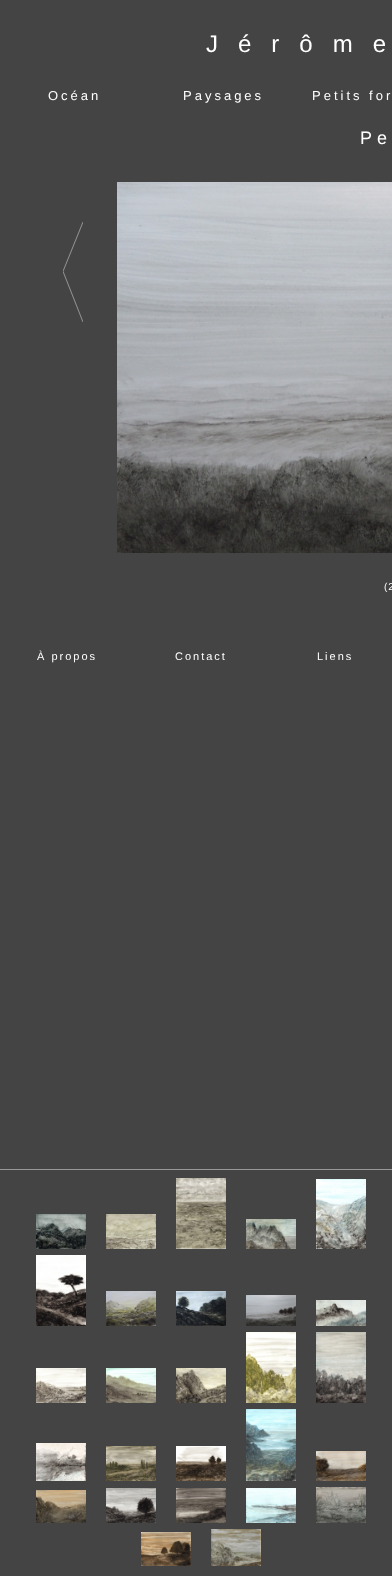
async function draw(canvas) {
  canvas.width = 392
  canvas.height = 1576
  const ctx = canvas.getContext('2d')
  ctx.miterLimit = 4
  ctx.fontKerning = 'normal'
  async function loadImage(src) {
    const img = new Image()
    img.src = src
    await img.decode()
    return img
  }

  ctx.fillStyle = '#444'
  ctx.fillRect(0, 0, 392, 1576)
  ctx.letterSpacing = '20px'
  ctx.font = '24px Liberation Sans'
  ctx.fillStyle = '#fff'
  ctx.fillText('Jérôme', 206, 52)
  ctx.letterSpacing = '3px'
  ctx.font = '13px Liberation Sans'
  ctx.fillText('Océan', 48, 100)
  ctx.fillText('Paysages', 183, 100)
  ctx.fillText('Petits for', 312, 100)
  ctx.letterSpacing = '5px'
  ctx.font = '18px Liberation Sans'
  ctx.fillText('Pe', 360, 144)
  ctx.drawImage(await loadImage('image0.png'), 63, 222, 20, 100)
  ctx.drawImage(await loadImage('image1.png'), 117, 182, 275, 371)
  ctx.letterSpacing = '1px'
  ctx.font = '10px Liberation Sans'
  ctx.fillText('(2', 384, 590)
  ctx.letterSpacing = '2px'
  ctx.font = '11px Liberation Sans'
  ctx.fillText('À propos', 37, 660)
  ctx.fillText('Contact', 175, 660)
  ctx.fillText('Liens', 317, 660)
  ctx.fillStyle = '#999'
  ctx.fillRect(0, 1169, 392, 1)
  ctx.drawImage(await loadImage('image2.png'), 36, 1214, 50, 35)
  ctx.drawImage(await loadImage('image3.png'), 106, 1214, 50, 35)
  ctx.drawImage(await loadImage('image4.png'), 176, 1178, 50, 71)
  ctx.drawImage(await loadImage('image5.png'), 246, 1219, 50, 30)
  ctx.drawImage(await loadImage('image6.png'), 316, 1179, 50, 70)
  ctx.drawImage(await loadImage('image7.png'), 36, 1255, 50, 71)
  ctx.drawImage(await loadImage('image8.png'), 106, 1291, 50, 35)
  ctx.drawImage(await loadImage('image9.png'), 176, 1291, 50, 35)
  ctx.drawImage(await loadImage('image10.png'), 246, 1295, 50, 31)
  ctx.drawImage(await loadImage('image11.png'), 316, 1300, 50, 26)
  ctx.drawImage(await loadImage('image12.png'), 36, 1368, 50, 35)
  ctx.drawImage(await loadImage('image13.png'), 106, 1368, 50, 35)
  ctx.drawImage(await loadImage('image14.png'), 176, 1368, 50, 35)
  ctx.drawImage(await loadImage('image15.png'), 246, 1332, 50, 71)
  ctx.drawImage(await loadImage('image16.png'), 316, 1332, 50, 71)
  ctx.drawImage(await loadImage('image17.png'), 36, 1443, 50, 38)
  ctx.drawImage(await loadImage('image18.png'), 106, 1446, 50, 35)
  ctx.drawImage(await loadImage('image19.png'), 176, 1446, 50, 35)
  ctx.drawImage(await loadImage('image20.png'), 246, 1409, 50, 72)
  ctx.drawImage(await loadImage('image21.png'), 316, 1451, 50, 30)
  ctx.drawImage(await loadImage('image22.png'), 36, 1490, 50, 33)
  ctx.drawImage(await loadImage('image23.png'), 106, 1488, 50, 35)
  ctx.drawImage(await loadImage('image24.png'), 176, 1488, 50, 35)
  ctx.drawImage(await loadImage('image25.png'), 246, 1488, 50, 35)
  ctx.drawImage(await loadImage('image26.png'), 316, 1487, 50, 36)
  ctx.drawImage(await loadImage('image27.png'), 141, 1532, 50, 34)
  ctx.drawImage(await loadImage('image28.png'), 211, 1529, 50, 37)
}

draw(document.querySelector('canvas'))
